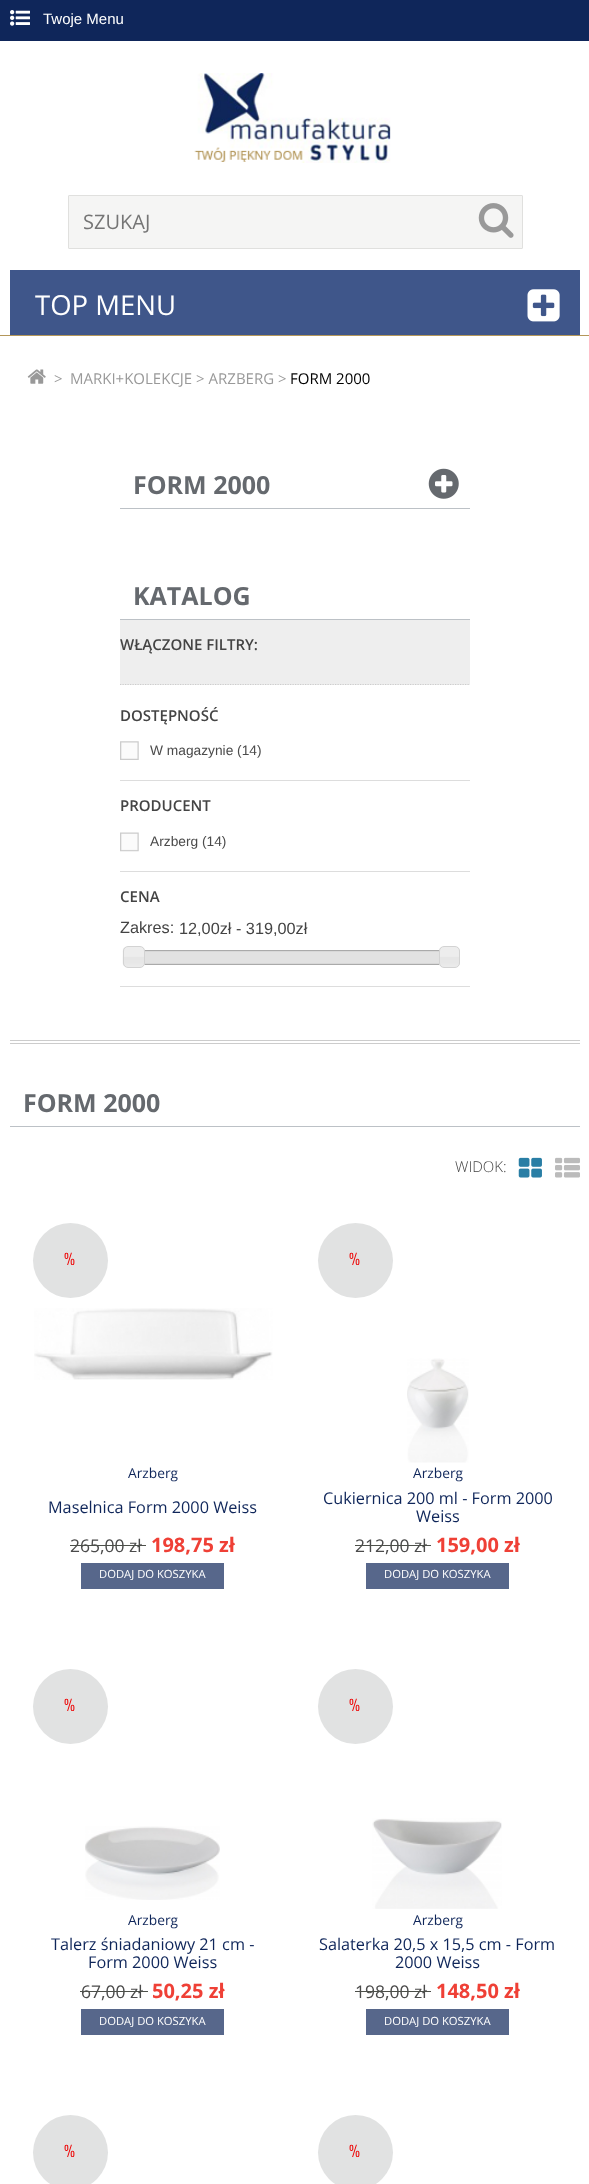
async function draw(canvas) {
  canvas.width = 589
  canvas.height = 2184
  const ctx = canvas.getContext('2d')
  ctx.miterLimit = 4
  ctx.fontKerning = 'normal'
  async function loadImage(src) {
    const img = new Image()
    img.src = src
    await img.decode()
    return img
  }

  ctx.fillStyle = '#fff'
  ctx.fillRect(0, 0, 589, 2184)
  ctx.fillStyle = '#0f265a'
  ctx.fillRect(0, 0, 589, 41)
  ctx.drawImage(await loadImage('image0.png'), 10, 10, 20, 16)
  ctx.font = '15px Liberation Sans'
  ctx.fillStyle = '#fff'
  ctx.fillText('Twoje Menu', 43, 24)
  ctx.fillStyle = '#b4975a'
  ctx.fillRect(0, 335, 589, 1)
  ctx.drawImage(await loadImage('image1.png'), 194, 73, 197, 90)
  ctx.fillStyle = '#f5f5f4'
  ctx.beginPath()
  ctx.roundRect(68.5, 195.5, 454, 53, 0.5)
  ctx.fill()
  ctx.strokeStyle = '#e0e0de'
  ctx.stroke()
  ctx.font = '20px Open Sans'
  ctx.fillStyle = '#757575'
  ctx.fillText('SZUKAJ', 83, 229)
  ctx.drawImage(await loadImage('image2.png'), 478, 203, 36, 35)
  ctx.fillStyle = '#3f568a'
  ctx.fillRect(10, 270, 570, 65)
  ctx.font = '27.5px Open Sans'
  ctx.fillStyle = '#fff'
  ctx.fillText('TOP MENU', 35, 315)
  ctx.drawImage(await loadImage('image3.png'), 527, 289, 33, 33)
  ctx.drawImage(await loadImage('image4.png'), 27, 369, 19, 15)
  ctx.font = '15px Open Sans'
  ctx.fillStyle = '#999'
  ctx.fillText('>', 54, 384)
  ctx.fillText('MARKI+KOLEKCJE > ARZBERG >', 70, 384)
  ctx.fillStyle = '#000'
  ctx.fillText('FORM 2000', 290, 384)
  ctx.fillStyle = '#ccc'
  ctx.fillRect(10, 1040, 570, 1)
  ctx.fillRect(10, 1043, 570, 1)
  ctx.fillStyle = '#bcc1c6'
  ctx.fillRect(120, 508, 350, 1)
  ctx.font = 'bold 25px Open Sans'
  ctx.fillStyle = '#65696e'
  ctx.fillText('FORM 2000', 133, 494)
  ctx.drawImage(await loadImage('image5.png'), 428, 468, 31, 31)
  ctx.fillStyle = '#bcc1c6'
  ctx.fillRect(120, 619, 350, 1)
  ctx.fillStyle = '#65696e'
  ctx.fillText('KATALOG', 133, 605)
  ctx.fillStyle = '#eee'
  ctx.fillRect(120, 620, 350, 65)
  ctx.beginPath()
  ctx.moveTo(120, 684.5)
  ctx.lineTo(470, 684.5)
  ctx.strokeStyle = '#ccc'
  ctx.lineWidth = 1.2
  ctx.setLineDash([1.25, 1.25])
  ctx.stroke()
  ctx.font = '600 15px Open Sans'
  ctx.fillStyle = '#444'
  ctx.fillText('WŁĄCZONE FILTRY:', 120, 650)
  ctx.fillStyle = '#ddd'
  ctx.fillRect(120, 780, 350, 1)
  ctx.fillStyle = '#444'
  ctx.fillText('DOSTĘPNOŚĆ', 120, 721)
  ctx.drawImage(await loadImage('image6.png'), 120, 741, 19, 19)
  ctx.font = '13.75px Liberation Sans'
  ctx.fillStyle = '#4b4b4b'
  ctx.fillText('W magazynie (14)', 150, 755)
  ctx.fillStyle = '#ddd'
  ctx.fillRect(120, 871, 350, 1)
  ctx.font = '600 15px Open Sans'
  ctx.fillStyle = '#444'
  ctx.fillText('PRODUCENT', 120, 811)
  ctx.drawImage(await loadImage('image7.png'), 120, 832, 19, 20)
  ctx.font = '13.75px Liberation Sans'
  ctx.fillStyle = '#4b4b4b'
  ctx.fillText('Arzberg (14)', 150, 846)
  ctx.fillStyle = '#ddd'
  ctx.fillRect(120, 986, 350, 1)
  ctx.font = '600 15px Open Sans'
  ctx.fillStyle = '#444'
  ctx.fillText('CENA', 120, 902)
  ctx.font = '16.25px Liberation Sans'
  ctx.fillText('Zakres:', 120, 933)
  ctx.fillText('12,00zł - 319,00zł', 179, 934)
  ctx.strokeStyle = '#aaa'
  ctx.lineWidth = 1
  ctx.setLineDash([])
  ctx.strokeRect(133.5, 950.5, 317, 14)
  ctx.fillStyle = '#ccc'
  ctx.fillRect(144, 951, 295, 13)
  ctx.drawImage(await loadImage('image9.png'), 144, 951, 295, 13)
  ctx.drawImage(await loadImage('image8.png'), 122, 947, 23, 20)
  ctx.beginPath()
  ctx.roundRect(123.5, 946.5, 21, 21, 4.5)
  ctx.strokeStyle = '#d3d3d3'
  ctx.stroke()
  ctx.drawImage(await loadImage('image10.png'), 439, 947, 21, 20)
  ctx.beginPath()
  ctx.roundRect(439.5, 946.5, 20, 21, 4.5)
  ctx.stroke()
  ctx.fillStyle = '#bcc1c6'
  ctx.fillRect(10, 1126, 570, 1)
  ctx.font = 'bold 25px Open Sans'
  ctx.fillStyle = '#65696e'
  ctx.fillText('FORM 2000', 23, 1112)
  ctx.font = '300 15px Open Sans'
  ctx.fillStyle = '#444'
  ctx.fillText('WIDOK:', 455, 1172)
  ctx.drawImage(await loadImage('image11.png'), 518, 1157, 24, 21)
  ctx.drawImage(await loadImage('image12.png'), 555, 1157, 25, 21)
  ctx.fillStyle = '#e1e2e2'
  ctx.beginPath()
  ctx.arc(70.5, 1260.5, 37.5, 0, 2 * Math.PI)
  ctx.fill()
  ctx.font = '300 15px Oswald'
  ctx.fillStyle = '#e00'
  ctx.fillText('%', 64, 1265)
  ctx.drawImage(await loadImage('image13.png'), 34, 1308, 239, 72)
  ctx.font = '13.75px Open Sans'
  ctx.fillStyle = '#0f265a'
  ctx.fillText('Arzberg', 128, 1478)
  ctx.font = '16.25px Open Sans'
  ctx.fillText('Maselnica Form 2000 Weiss', 48, 1513)
  ctx.font = '17.5px Open Sans'
  ctx.fillStyle = '#4b4b4b'
  ctx.fillText('265,00 zł', 70, 1552)
  ctx.fillStyle = '#4d504a'
  ctx.fillRect(70, 1545, 76, 1)
  ctx.font = 'bold 20px Open Sans'
  ctx.fillStyle = '#ef4036'
  ctx.fillText('198,75 zł', 151, 1552)
  ctx.fillStyle = '#57678b'
  ctx.fillRect(81, 1563, 143, 26)
  ctx.font = '11.25px Open Sans'
  ctx.fillStyle = '#fff'
  ctx.fillText('DODAJ DO KOSZYKA', 99, 1578)
  ctx.fillStyle = '#e1e2e2'
  ctx.beginPath()
  ctx.arc(355.5, 1260.5, 37.5, 0, 2 * Math.PI)
  ctx.fill()
  ctx.font = '300 15px Oswald'
  ctx.fillStyle = '#e00'
  ctx.fillText('%', 349, 1265)
  ctx.drawImage(await loadImage('image14.png'), 407, 1358, 62, 105)
  ctx.font = '13.75px Open Sans'
  ctx.fillStyle = '#0f265a'
  ctx.fillText('Arzberg', 413, 1478)
  ctx.font = '16.25px Open Sans'
  ctx.fillText('Cukiernica 200 ml - Form 2000', 323, 1504)
  ctx.fillText('Weiss', 416, 1522)
  ctx.font = '17.5px Open Sans'
  ctx.fillStyle = '#4b4b4b'
  ctx.fillText('212,00 zł', 355, 1552)
  ctx.fillStyle = '#4d504a'
  ctx.fillRect(355, 1545, 76, 1)
  ctx.font = 'bold 20px Open Sans'
  ctx.fillStyle = '#ef4036'
  ctx.fillText('159,00 zł', 436, 1552)
  ctx.fillStyle = '#57678b'
  ctx.fillRect(366, 1563, 143, 26)
  ctx.font = '11.25px Open Sans'
  ctx.fillStyle = '#fff'
  ctx.fillText('DODAJ DO KOSZYKA', 384, 1578)
  ctx.fillStyle = '#e1e2e2'
  ctx.beginPath()
  ctx.arc(70.5, 1706.5, 37.5, 0, 2 * Math.PI)
  ctx.fill()
  ctx.font = '300 15px Oswald'
  ctx.fillStyle = '#e00'
  ctx.fillText('%', 64, 1711)
  ctx.drawImage(await loadImage('image15.png'), 85, 1826, 135, 74)
  ctx.font = '13.75px Open Sans'
  ctx.fillStyle = '#0f265a'
  ctx.fillText('Arzberg', 128, 1925)
  ctx.font = '16.25px Open Sans'
  ctx.fillText('Talerz śniadaniowy 21 cm -', 51, 1950)
  ctx.fillText('Form 2000 Weiss', 88, 1968)
  ctx.font = '17.5px Open Sans'
  ctx.fillStyle = '#4b4b4b'
  ctx.fillText('67,00 zł', 81, 1998)
  ctx.fillStyle = '#4d504a'
  ctx.fillRect(80, 1991, 68, 1)
  ctx.font = 'bold 20px Open Sans'
  ctx.fillStyle = '#ef4036'
  ctx.fillText('50,25 zł', 152, 1998)
  ctx.fillStyle = '#57678b'
  ctx.fillRect(81, 2009, 143, 26)
  ctx.font = '11.25px Open Sans'
  ctx.fillStyle = '#fff'
  ctx.fillText('DODAJ DO KOSZYKA', 99, 2025)
  ctx.fillStyle = '#e1e2e2'
  ctx.beginPath()
  ctx.arc(355.5, 1706.5, 37.5, 0, 2 * Math.PI)
  ctx.fill()
  ctx.font = '300 15px Oswald'
  ctx.fillStyle = '#e00'
  ctx.fillText('%', 349, 1711)
  ctx.drawImage(await loadImage('image16.png'), 372, 1818, 130, 91)
  ctx.font = '13.75px Open Sans'
  ctx.fillStyle = '#0f265a'
  ctx.fillText('Arzberg', 413, 1925)
  ctx.font = '16.25px Open Sans'
  ctx.fillText('Salaterka 20,5 x 15,5 cm - Form', 319, 1950)
  ctx.fillText('2000 Weiss', 395, 1968)
  ctx.font = '17.5px Open Sans'
  ctx.fillStyle = '#4b4b4b'
  ctx.fillText('198,00 zł', 355, 1998)
  ctx.fillStyle = '#4d504a'
  ctx.fillRect(355, 1991, 76, 1)
  ctx.font = 'bold 20px Open Sans'
  ctx.fillStyle = '#ef4036'
  ctx.fillText('148,50 zł', 436, 1998)
  ctx.fillStyle = '#57678b'
  ctx.fillRect(366, 2009, 143, 26)
  ctx.font = '11.25px Open Sans'
  ctx.fillStyle = '#fff'
  ctx.fillText('DODAJ DO KOSZYKA', 384, 2025)
  ctx.fillStyle = '#e1e2e2'
  ctx.beginPath()
  ctx.arc(70.5, 2152.5, 37.5, 0, 2 * Math.PI)
  ctx.fill()
  ctx.font = '300 15px Oswald'
  ctx.fillStyle = '#e00'
  ctx.fillText('%', 64, 2157)
  ctx.fillStyle = '#e1e2e2'
  ctx.beginPath()
  ctx.arc(355.5, 2152.5, 37.5, 0, 2 * Math.PI)
  ctx.fill()
  ctx.fillStyle = '#e00'
  ctx.fillText('%', 349, 2157)
}

draw(document.querySelector('canvas'))
